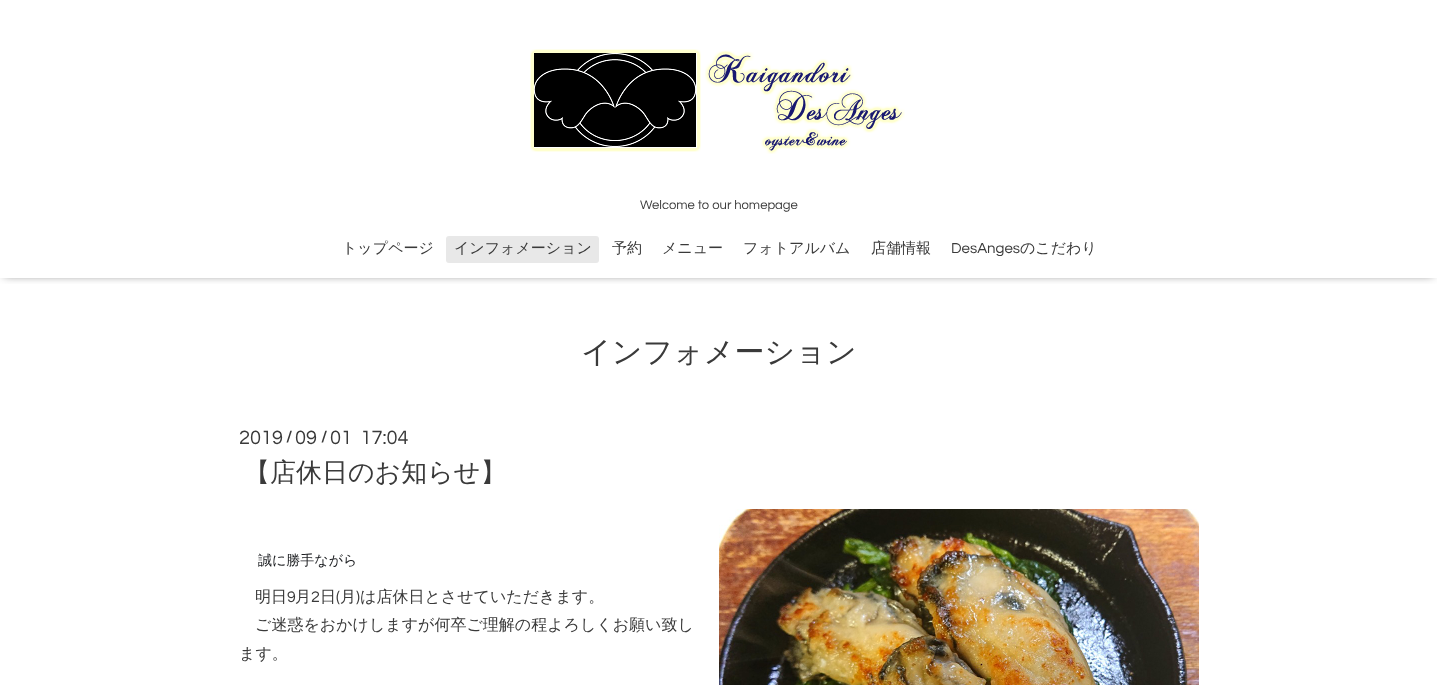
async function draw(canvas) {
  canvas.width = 1437
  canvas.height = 685
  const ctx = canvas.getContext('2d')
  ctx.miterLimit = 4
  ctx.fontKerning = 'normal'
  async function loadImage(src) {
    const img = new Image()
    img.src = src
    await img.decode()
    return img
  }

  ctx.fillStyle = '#fff'
  ctx.fillRect(0, 0, 1437, 685)
  ctx.save()
  ctx.beginPath()
  ctx.rect(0, 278, 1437, 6)
  ctx.clip()
  ctx.fillStyle = '#00000099'
  ctx.filter = 'blur(5px)'
  ctx.beginPath()
  ctx.rect(4, 5, 1429, 270)
  ctx.fill()
  ctx.filter = 'none'
  ctx.restore()
  ctx.drawImage(await loadImage('image0.png'), 530, 49, 375, 105)
  ctx.font = '13px Questrial'
  ctx.fillStyle = '#3a3a3a'
  ctx.fillText('Welcome to our homepage', 640, 209)
  ctx.font = '500 15px WenQuanYi Zen Hei'
  ctx.fillText('トップページ', 342, 253)
  ctx.fillStyle = '#e8e8e8'
  ctx.beginPath()
  ctx.roundRect(446, 236, 153, 27, 3)
  ctx.fill()
  ctx.fillStyle = '#3a3a3a'
  ctx.fillText('インフォメーション', 454, 253)
  ctx.fillText('予約', 612, 253)
  ctx.fillText('メニュー', 662, 253)
  ctx.fillText('フォトアルバム', 743, 253)
  ctx.fillText('店舗情報', 871, 253)
  ctx.font = '15px Questrial'
  ctx.fillText('DesAnges', 951, 253)
  ctx.font = '500 15px WenQuanYi Zen Hei'
  ctx.fillText('のこだわり', 1020, 253)
  ctx.font = '500 30px WenQuanYi Zen Hei'
  ctx.fillText('インフォメーション', 581, 362)
  ctx.font = '20px Questrial'
  ctx.fillText('2019', 239, 444)
  ctx.font = 'bold 16px Questrial'
  ctx.fillText('/', 286, 442)
  ctx.font = '20px Questrial'
  ctx.fillText('09', 295, 444)
  ctx.font = 'bold 16px Questrial'
  ctx.fillText('/', 321, 442)
  ctx.font = '20px Questrial'
  ctx.fillText('01  17:04', 330, 444)
  ctx.font = '500 26px WenQuanYi Zen Hei'
  ctx.fillText('【店休日のお知らせ】', 244, 481)
  ctx.font = '500 14px WenQuanYi Zen Hei'
  ctx.fillStyle = '#1c1e21'
  ctx.fillText('誠に勝手ながら', 258, 565)
  ctx.font = '500 16px WenQuanYi Zen Hei'
  ctx.fillStyle = '#3a3a3a'
  ctx.fillText('明日', 255, 602)
  ctx.font = '16px Questrial'
  ctx.fillText('9', 287, 602)
  ctx.font = '500 16px WenQuanYi Zen Hei'
  ctx.fillText('月', 295, 602)
  ctx.font = '16px Questrial'
  ctx.fillText('2', 311, 602)
  ctx.font = '500 16px WenQuanYi Zen Hei'
  ctx.fillText('日', 320, 602)
  ctx.font = '16px Questrial'
  ctx.fillText('(', 336, 602)
  ctx.font = '500 16px WenQuanYi Zen Hei'
  ctx.fillText('月', 340, 602)
  ctx.font = '16px Questrial'
  ctx.fillText(')', 356, 602)
  ctx.font = '500 16px WenQuanYi Zen Hei'
  ctx.fillText('は店休日とさせていただきます。', 360, 602)
  ctx.fillText('ご迷惑をおかけしますが何卒ご理解の程よろしくお願い致し', 255, 630)
  ctx.fillText('ます。', 239, 659)
  ctx.drawImage(await loadImage('image1.png'), 719, 509, 480, 176)
}

draw(document.querySelector('canvas'))
